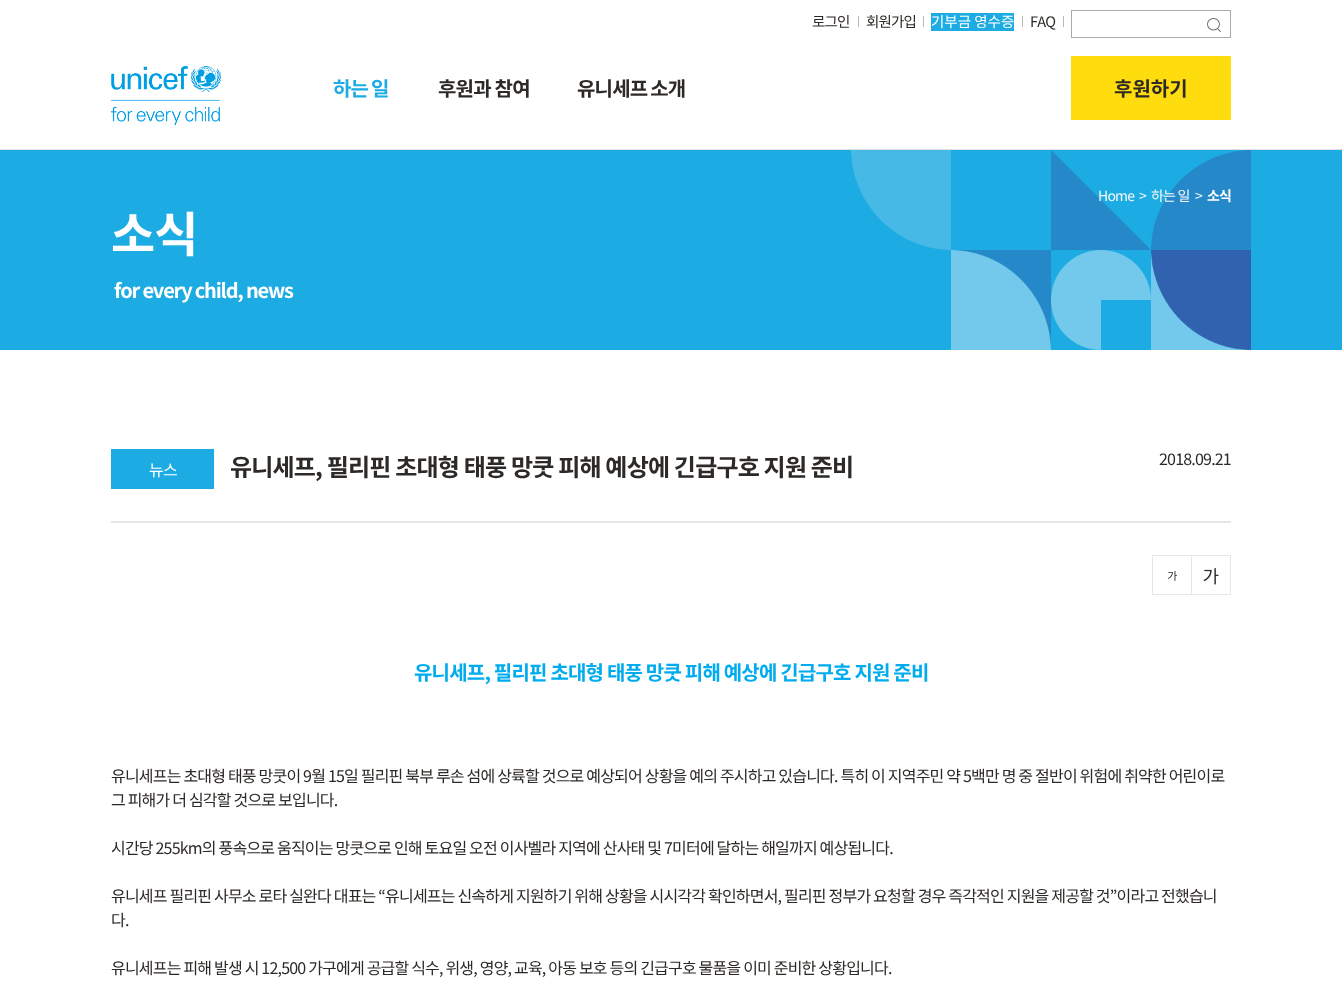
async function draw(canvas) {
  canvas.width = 1342
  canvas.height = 983
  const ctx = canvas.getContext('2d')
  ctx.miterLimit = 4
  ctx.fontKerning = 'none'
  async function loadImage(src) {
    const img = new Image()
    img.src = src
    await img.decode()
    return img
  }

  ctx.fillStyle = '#fff'
  ctx.fillRect(0, 0, 1342, 983)
  ctx.fillStyle = '#e0e0e0'
  ctx.fillRect(0, 149, 1342, 1)
  ctx.letterSpacing = '-0.8px'
  ctx.font = '14.5px Noto Sans KR'
  ctx.fillStyle = '#2d2926'
  ctx.fillText('로그인', 812, 27)
  ctx.fillStyle = '#b7b8ba'
  ctx.fillRect(858, 16, 1, 11)
  ctx.fillStyle = '#2d2926'
  ctx.fillText('회원가입', 866, 27)
  ctx.fillStyle = '#b7b8ba'
  ctx.fillRect(923, 16, 1, 11)
  ctx.fillStyle = '#1cabe2'
  ctx.fillRect(931, 13, 83, 18)
  ctx.letterSpacing = '0px'
  ctx.fillStyle = '#fff'
  ctx.fillText('기부금 영수증', 931, 27)
  ctx.fillStyle = '#b7b8ba'
  ctx.fillRect(1022, 16, 1, 11)
  ctx.letterSpacing = '-0.8px'
  ctx.fillStyle = '#2d2926'
  ctx.fillText('FAQ', 1030, 27)
  ctx.fillStyle = '#b7b8ba'
  ctx.fillRect(1063, 16, 1, 11)
  ctx.strokeStyle = '#aaa'
  ctx.strokeRect(1071.5, 10.5, 159, 27)
  ctx.drawImage(await loadImage('image0.png'), 1207, 18, 14, 14)
  ctx.drawImage(await loadImage('image1.png'), 111, 66, 110, 59)
  ctx.wordSpacing = '-1px'
  ctx.font = 'bold 20px Noto Sans KR'
  ctx.fillStyle = '#1cabe2'
  ctx.fillText('하는 일', 333, 96)
  ctx.wordSpacing = '0px'
  ctx.fillStyle = '#2d2926'
  ctx.fillText('후원과 참여', 438, 96)
  ctx.wordSpacing = '-1px'
  ctx.fillText('유니세프 소개', 577, 96)
  ctx.fillStyle = '#ffdc0e'
  ctx.fillRect(1071, 56, 160, 64)
  ctx.letterSpacing = '0px'
  ctx.wordSpacing = '0px'
  ctx.fillStyle = '#2d2926'
  ctx.fillText('후원하기', 1114, 96)
  ctx.fillStyle = '#1cabe2'
  ctx.fillRect(0, 150, 1342, 200)
  ctx.drawImage(await loadImage('image2.png'), 851, 150, 400, 200)
  ctx.letterSpacing = '-0.8px'
  ctx.font = '14px Noto Sans KR'
  ctx.fillStyle = '#f8f9fa'
  ctx.fillText('Home', 1098, 201)
  ctx.fillText('>', 1139, 201)
  ctx.fillText('하는 일', 1151, 201)
  ctx.fillText('>', 1195, 201)
  ctx.font = 'bold 14px Noto Sans KR'
  ctx.fillStyle = '#fff'
  ctx.fillText('소식', 1207, 201)
  ctx.font = 'bold 48px Noto Sans KR'
  ctx.fillText('소식', 111, 252)
  ctx.letterSpacing = '-1.2px'
  ctx.font = 'bold 20px Noto Sans KR'
  ctx.fillText('for every child, news', 114, 298)
  ctx.fillStyle = '#e5e6e8'
  ctx.fillRect(111, 521, 1120, 2)
  ctx.fillStyle = '#1cabe2'
  ctx.fillRect(111, 449, 103, 40)
  ctx.letterSpacing = '-0.8px'
  ctx.font = '16px Noto Sans KR'
  ctx.fillStyle = '#fff'
  ctx.fillText('뉴스', 149, 476)
  ctx.font = 'bold 24px Noto Sans KR'
  ctx.fillStyle = '#2d2926'
  ctx.fillText('유니세프, 필리핀 초대형 태풍 망쿳 피해 예상에 긴급구호 지원 준비', 230, 476)
  ctx.font = '16px Noto Sans KR'
  ctx.fillText('2018.09.21', 1159, 465)
  ctx.drawImage(await loadImage('image3.png'), 1152, 555, 40, 40)
  ctx.drawImage(await loadImage('image4.png'), 1192, 555, 39, 40)
  ctx.font = 'bold 20px Noto Sans KR'
  ctx.fillStyle = '#00acee'
  ctx.fillText('유니세프, 필리핀 초대형 태풍 망쿳 피해 예상에 긴급구호 지원 준비', 414, 680)
  ctx.font = '16px Noto Sans KR'
  ctx.fillStyle = '#2d2926'
  ctx.fillText('유니세프는 초대형 태풍 망쿳이 9월 15일 필리핀 북부 루손 섬에 상륙할 것으로 예상되어 상황을 예의 주시하고 있습니다. 특히 이 지역주민 약 5백만 명 중 절반이 위험에 취약한 어린이로', 111, 782)
  ctx.fillText('그 피해가 더 심각할 것으로 보입니다.', 111, 806)
  ctx.fillText('시간당 255km의 풍속으로 움직이는 망쿳으로 인해 토요일 오전 이사벨라 지역에 산사태 및 7미터에 달하는 해일까지 예상됩니다.', 111, 854)
  ctx.fillText('유니세프 필리핀 사무소 로타 실완다 대표는 “유니세프는 신속하게 지원하기 위해 상황을 시시각각 확인하면서, 필리핀 정부가 요청할 경우 즉각적인 지원을 제공할 것”이라고 전했습니', 111, 902)
  ctx.fillText('다.', 111, 926)
  ctx.fillText('유니세프는 피해 발생 시 12,500 가구에게 공급할 식수, 위생, 영양, 교육, 아동 보호 등의 긴급구호 물품을 이미 준비한 상황입니다.', 111, 974)
}

draw(document.querySelector('canvas'))
